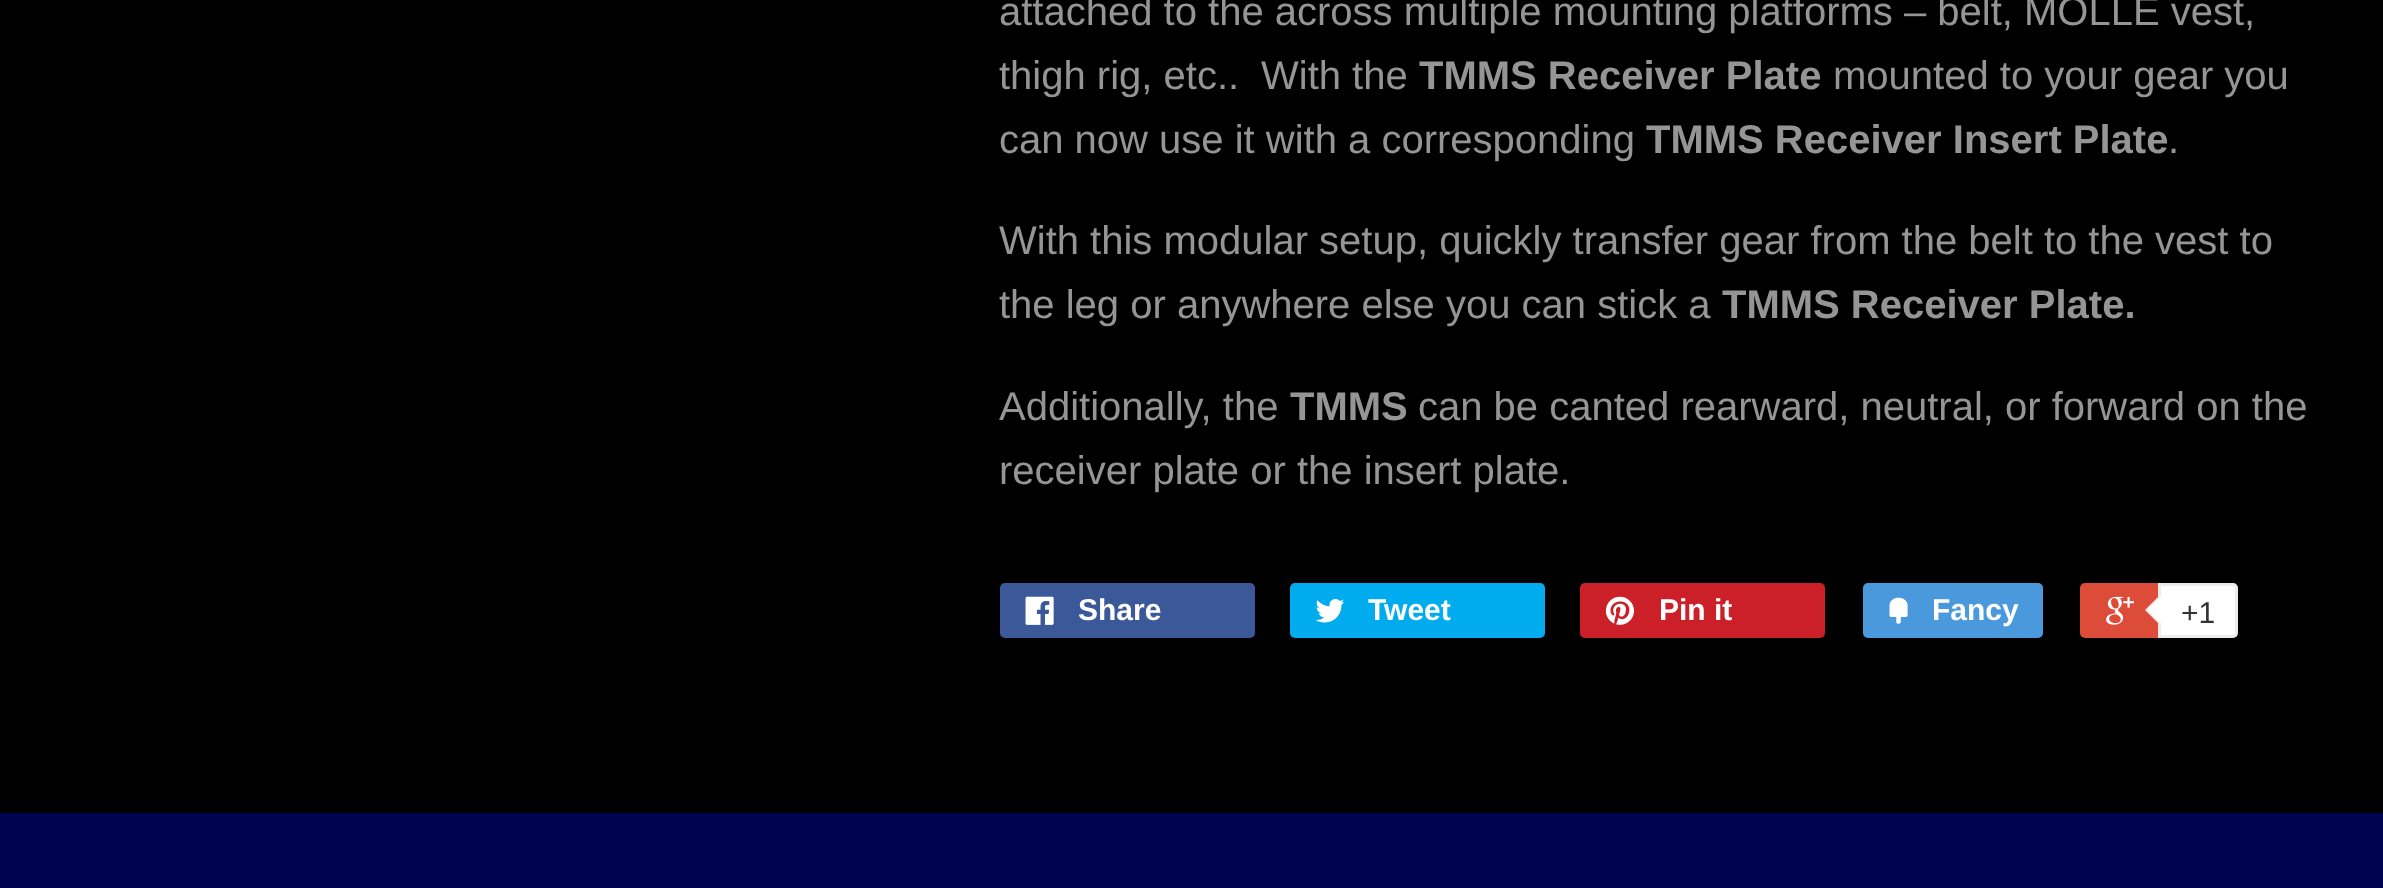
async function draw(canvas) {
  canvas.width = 2383
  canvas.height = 888
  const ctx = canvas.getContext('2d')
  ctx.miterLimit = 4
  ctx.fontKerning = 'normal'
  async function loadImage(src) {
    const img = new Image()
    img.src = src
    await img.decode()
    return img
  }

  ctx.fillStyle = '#000'
  ctx.fillRect(0, 0, 2383, 888)
  ctx.font = '40px Liberation Sans'
  ctx.fillStyle = '#959595'
  ctx.fillText('attached to the across multiple mounting platforms – belt, MOLLE vest,', 999, 25)
  ctx.fillText('thigh rig, etc..', 999, 89)
  ctx.fillText('With the', 1261, 89)
  ctx.font = 'bold 40px Liberation Sans'
  ctx.fillText('TMMS Receiver Plate', 1419, 89)
  ctx.font = '40px Liberation Sans'
  ctx.fillText('mounted to your gear you', 1833, 89)
  ctx.fillText('can now use it with a corresponding', 999, 153)
  ctx.font = 'bold 40px Liberation Sans'
  ctx.fillText('TMMS Receiver Insert Plate', 1646, 153)
  ctx.font = '40px Liberation Sans'
  ctx.fillText('.', 2168, 153)
  ctx.fillText('With this modular setup, quickly transfer gear from the belt to the vest to', 999, 254)
  ctx.fillText('the leg or anywhere else you can stick a', 999, 318)
  ctx.font = 'bold 40px Liberation Sans'
  ctx.fillText('TMMS Receiver Plate.', 1722, 318)
  ctx.font = '40px Liberation Sans'
  ctx.fillText('Additionally, the', 999, 420)
  ctx.font = 'bold 40px Liberation Sans'
  ctx.fillText('TMMS', 1290, 420)
  ctx.font = '40px Liberation Sans'
  ctx.fillText('can be canted rearward, neutral, or forward on the', 1418, 420)
  ctx.fillText('receiver plate or the insert plate.', 999, 484)
  ctx.fillStyle = '#3b5998'
  ctx.beginPath()
  ctx.roundRect(1000, 583, 255, 55, 5)
  ctx.fill()
  ctx.drawImage(await loadImage('image0.png'), 1025, 596, 29, 29)
  ctx.font = 'bold 30px Liberation Sans'
  ctx.fillStyle = '#fff'
  ctx.fillText('Share', 1078, 620)
  ctx.fillStyle = '#00aced'
  ctx.beginPath()
  ctx.roundRect(1290, 583, 255, 55, 5)
  ctx.fill()
  ctx.drawImage(await loadImage('image1.png'), 1315, 599, 30, 24)
  ctx.fillStyle = '#fff'
  ctx.fillText('Tweet', 1368, 620)
  ctx.fillStyle = '#cb2027'
  ctx.beginPath()
  ctx.roundRect(1580, 583, 245, 55, 5)
  ctx.fill()
  ctx.drawImage(await loadImage('image2.png'), 1605, 596, 29, 29)
  ctx.fillStyle = '#fff'
  ctx.fillText('Pin it', 1659, 620)
  ctx.fillStyle = '#4999dc'
  ctx.beginPath()
  ctx.roundRect(1863, 583, 180, 55, 5)
  ctx.fill()
  ctx.drawImage(await loadImage('image3.png'), 1889, 597, 19, 27)
  ctx.fillStyle = '#fff'
  ctx.fillText('Fancy', 1932, 620)
  ctx.fillStyle = '#dd4b39'
  ctx.beginPath()
  ctx.roundRect(2080, 583, 153, 55, 5)
  ctx.fill()
  ctx.drawImage(await loadImage('image4.png'), 2106, 596, 28, 29)
  ctx.fillStyle = '#fff'
  ctx.beginPath()
  ctx.roundRect(2159.5, 584.5, 77, 52, [0, 3.5, 3.5, 0])
  ctx.fill()
  ctx.strokeStyle = '#ececec'
  ctx.lineWidth = 3
  ctx.stroke()
  ctx.fillStyle = '#ececec'
  ctx.beginPath()
  ctx.moveTo(2160, 595)
  ctx.lineTo(2160, 625)
  ctx.lineTo(2145, 610)
  ctx.closePath()
  ctx.fill()
  ctx.fillStyle = '#fff'
  ctx.beginPath()
  ctx.moveTo(2162.5, 595)
  ctx.lineTo(2162.5, 625)
  ctx.lineTo(2147.5, 610)
  ctx.closePath()
  ctx.fill()
  ctx.font = '30px Liberation Sans'
  ctx.fillStyle = '#333'
  ctx.fillText('+1', 2181, 623)
  ctx.fillStyle = '#000350'
  ctx.fillRect(0, 813, 2383, 75)
}

draw(document.querySelector('canvas'))
